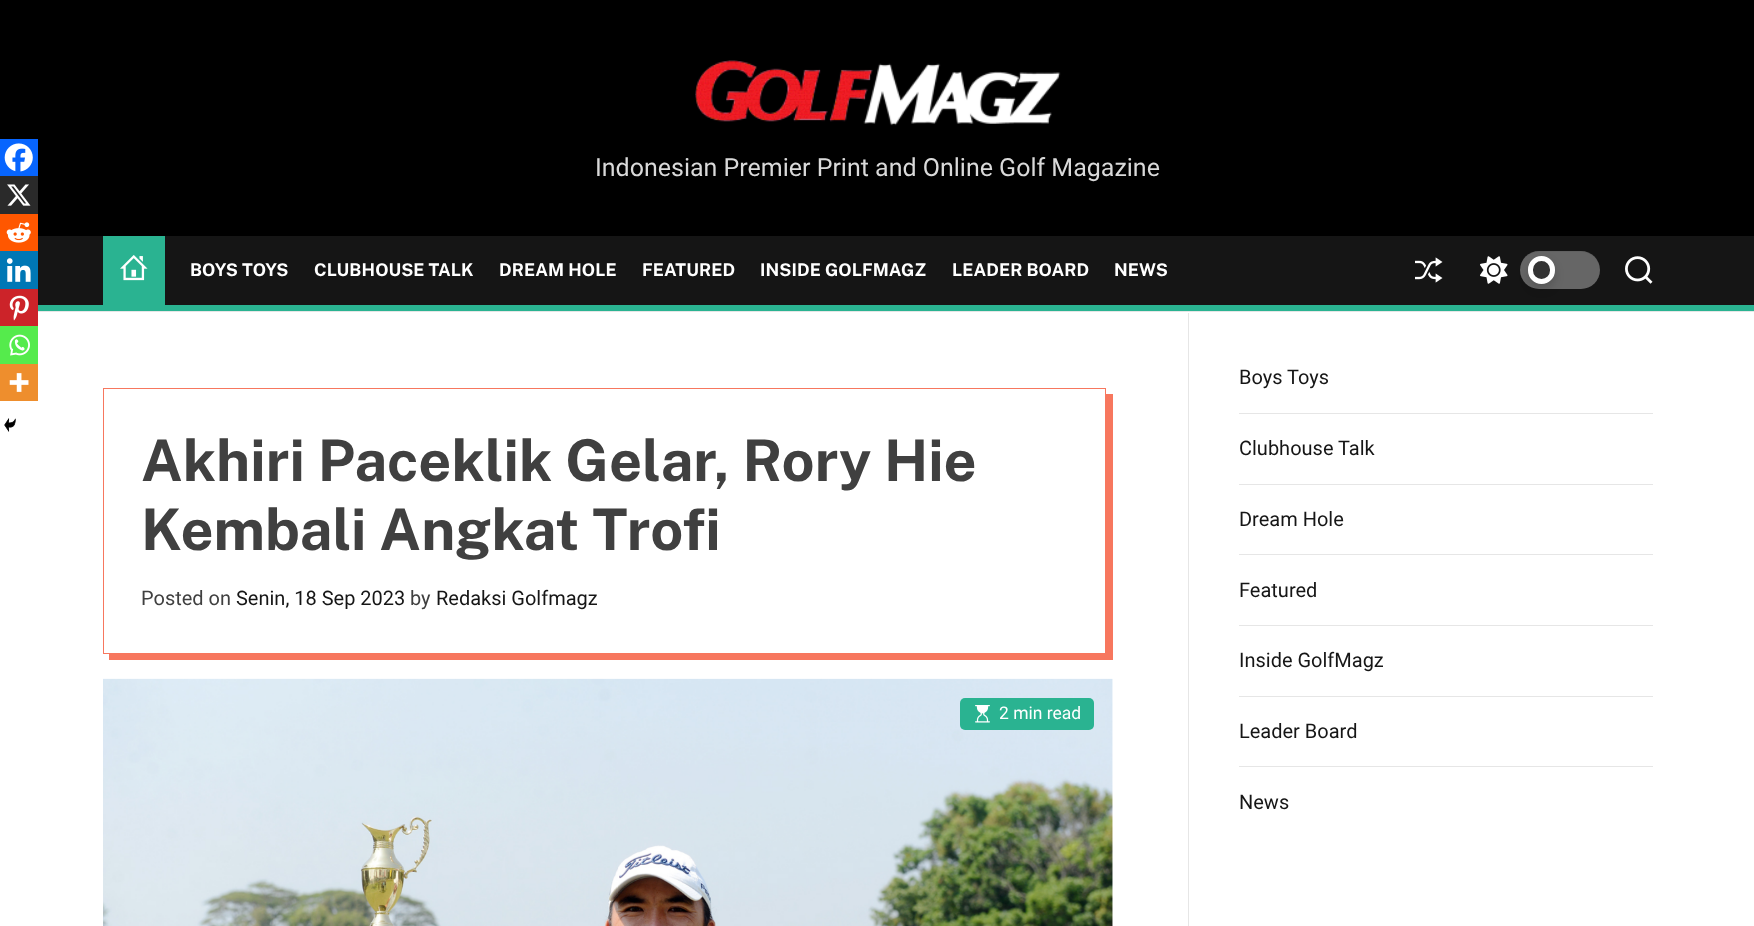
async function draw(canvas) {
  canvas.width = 1754
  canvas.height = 926
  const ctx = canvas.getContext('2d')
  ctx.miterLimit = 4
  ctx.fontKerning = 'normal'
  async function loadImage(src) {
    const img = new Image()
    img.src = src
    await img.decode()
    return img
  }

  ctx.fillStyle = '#fff'
  ctx.fillRect(0, 0, 1754, 926)
  ctx.fillStyle = '#000'
  ctx.fillRect(0, 0, 1754, 236)
  ctx.drawImage(await loadImage('image0.png'), 695, 60, 366, 66)
  ctx.font = '25px Roboto'
  ctx.fillStyle = '#d9d9d9'
  ctx.fillText('Indonesian Premier Print and Online Golf Magazine', 595, 176)
  ctx.fillStyle = '#151515'
  ctx.fillRect(38, 236, 1716, 69)
  ctx.fillStyle = '#2ab391'
  ctx.fillRect(38, 305, 1716, 6)
  ctx.fillRect(103, 236, 62, 69)
  ctx.drawImage(await loadImage('image1.png'), 120, 255, 28, 26)
  ctx.letterSpacing = '0.1px'
  ctx.font = 'bold 17.5px Public Sans'
  ctx.fillStyle = '#fff'
  ctx.fillText('BOYS TOYS', 190, 276)
  ctx.fillText('CLUBHOUSE TALK', 314, 276)
  ctx.fillText('DREAM HOLE', 499, 276)
  ctx.fillText('FEATURED', 642, 276)
  ctx.fillText('INSIDE GOLFMAGZ', 760, 276)
  ctx.fillText('LEADER BOARD', 952, 276)
  ctx.fillText('NEWS', 1114, 276)
  ctx.drawImage(await loadImage('image2.png'), 1415, 257, 28, 26)
  ctx.drawImage(await loadImage('image3.png'), 1480, 256, 28, 28)
  ctx.fillStyle = '#666'
  ctx.beginPath()
  ctx.roundRect(1520, 251, 80, 38, 19)
  ctx.fill()
  ctx.fillStyle = '#0000000d'
  ctx.beginPath()
  ctx.moveTo(1539, 252)
  ctx.lineTo(1581, 252)
  ctx.bezierCurveTo(1592, 252, 1600, 261, 1600, 271)
  ctx.lineTo(1600, 270)
  ctx.bezierCurveTo(1600, 260, 1591, 251, 1581, 251)
  ctx.lineTo(1539, 251)
  ctx.bezierCurveTo(1529, 251, 1520, 260, 1520, 270)
  ctx.lineTo(1520, 271)
  ctx.bezierCurveTo(1520, 261, 1528, 252, 1539, 252)
  ctx.closePath()
  ctx.fill()
  ctx.fillStyle = '#00000029'
  ctx.filter = 'blur(5px)'
  ctx.beginPath()
  ctx.roundRect(1528, 261, 27, 28, 13.5)
  ctx.fill()
  ctx.filter = 'none'
  ctx.fillStyle = '#333'
  ctx.beginPath()
  ctx.roundRect(1530.5, 258.5, 22, 23, 11)
  ctx.fill()
  ctx.strokeStyle = '#fff'
  ctx.lineWidth = 5
  ctx.stroke()
  ctx.drawImage(await loadImage('image4.png'), 1625, 256, 28, 28)
  ctx.fillStyle = '#e6e6e6'
  ctx.fillRect(38, 311, 1716, 1)
  ctx.fillStyle = '#0765fe'
  ctx.fillRect(0, 139, 38, 37)
  ctx.drawImage(await loadImage('image5.png'), 4, 143, 29, 29)
  ctx.fillStyle = '#2a2a2a'
  ctx.fillRect(0, 176, 38, 38)
  ctx.drawImage(await loadImage('image6.png'), 7, 184, 24, 22)
  ctx.fillStyle = '#ff5700'
  ctx.fillRect(0, 214, 38, 37)
  ctx.drawImage(await loadImage('image7.png'), 6, 222, 25, 21)
  ctx.fillStyle = '#0077b5'
  ctx.fillRect(0, 251, 38, 38)
  ctx.drawImage(await loadImage('image8.png'), 6, 258, 25, 24)
  ctx.fillStyle = '#cc2329'
  ctx.fillRect(0, 289, 38, 37)
  ctx.drawImage(await loadImage('image9.png'), 9, 295, 20, 26)
  ctx.fillStyle = '#55eb4c'
  ctx.fillRect(0, 326, 38, 38)
  ctx.drawImage(await loadImage('image10.png'), 9, 334, 21, 22)
  ctx.fillStyle = '#ee8e2d'
  ctx.fillRect(0, 364, 38, 37)
  ctx.drawImage(await loadImage('image11.png'), 9, 373, 20, 19)
  ctx.drawImage(await loadImage('image12.png'), 4, 418, 12, 14)
  ctx.fillStyle = '#f7775e'
  ctx.beginPath()
  ctx.moveTo(109, 654)
  ctx.lineTo(109, 660)
  ctx.lineTo(1113, 660)
  ctx.lineTo(1113, 394)
  ctx.lineTo(1106, 394)
  ctx.lineTo(1106, 654)
  ctx.closePath()
  ctx.fill()
  ctx.strokeStyle = '#f7775e'
  ctx.lineWidth = 1
  ctx.strokeRect(103.5, 388.5, 1002, 265)
  ctx.letterSpacing = '0px'
  ctx.font = 'bold 57.5px Public Sans'
  ctx.fillStyle = '#404040'
  ctx.fillText('Akhiri Paceklik Gelar, Rory Hie', 141, 481)
  ctx.fillText('Kembali Angkat Trofi', 141, 550)
  ctx.font = '20px Roboto'
  ctx.fillText('Posted on', 141, 605)
  ctx.fillStyle = '#161616'
  ctx.fillText('Senin, 18 Sep 2023', 236, 605)
  ctx.fillStyle = '#404040'
  ctx.fillText('by', 410, 605)
  ctx.fillStyle = '#161616'
  ctx.fillText('Redaksi Golfmagz', 436, 605)
  ctx.drawImage(await loadImage('image13.png'), 103, 678, 1010, 248)
  ctx.fillStyle = '#2ab391'
  ctx.beginPath()
  ctx.roundRect(960, 698, 134, 32, 5)
  ctx.fill()
  ctx.drawImage(await loadImage('image14.png'), 975, 705, 15, 18)
  ctx.font = '17.5px Roboto'
  ctx.fillStyle = '#fff'
  ctx.fillText('2 min read', 999, 719)
  ctx.fillStyle = '#e6e6e6'
  ctx.fillRect(1188, 313, 1, 613)
  ctx.fillRect(1239, 413, 414, 1)
  ctx.font = '20px Roboto'
  ctx.fillStyle = '#161616'
  ctx.fillText('Boys Toys', 1239, 384)
  ctx.fillStyle = '#e6e6e6'
  ctx.fillRect(1239, 484, 414, 1)
  ctx.fillStyle = '#161616'
  ctx.fillText('Clubhouse Talk', 1239, 455)
  ctx.fillStyle = '#e6e6e6'
  ctx.fillRect(1239, 554, 414, 1)
  ctx.fillStyle = '#161616'
  ctx.fillText('Dream Hole', 1239, 526)
  ctx.fillStyle = '#e6e6e6'
  ctx.fillRect(1239, 625, 414, 1)
  ctx.fillStyle = '#161616'
  ctx.fillText('Featured', 1239, 597)
  ctx.fillStyle = '#e6e6e6'
  ctx.fillRect(1239, 696, 414, 1)
  ctx.fillStyle = '#161616'
  ctx.fillText('Inside GolfMagz', 1239, 667)
  ctx.fillStyle = '#e6e6e6'
  ctx.fillRect(1239, 766, 414, 1)
  ctx.fillStyle = '#161616'
  ctx.fillText('Leader Board', 1239, 738)
  ctx.fillText('News', 1239, 809)
}

draw(document.querySelector('canvas'))
